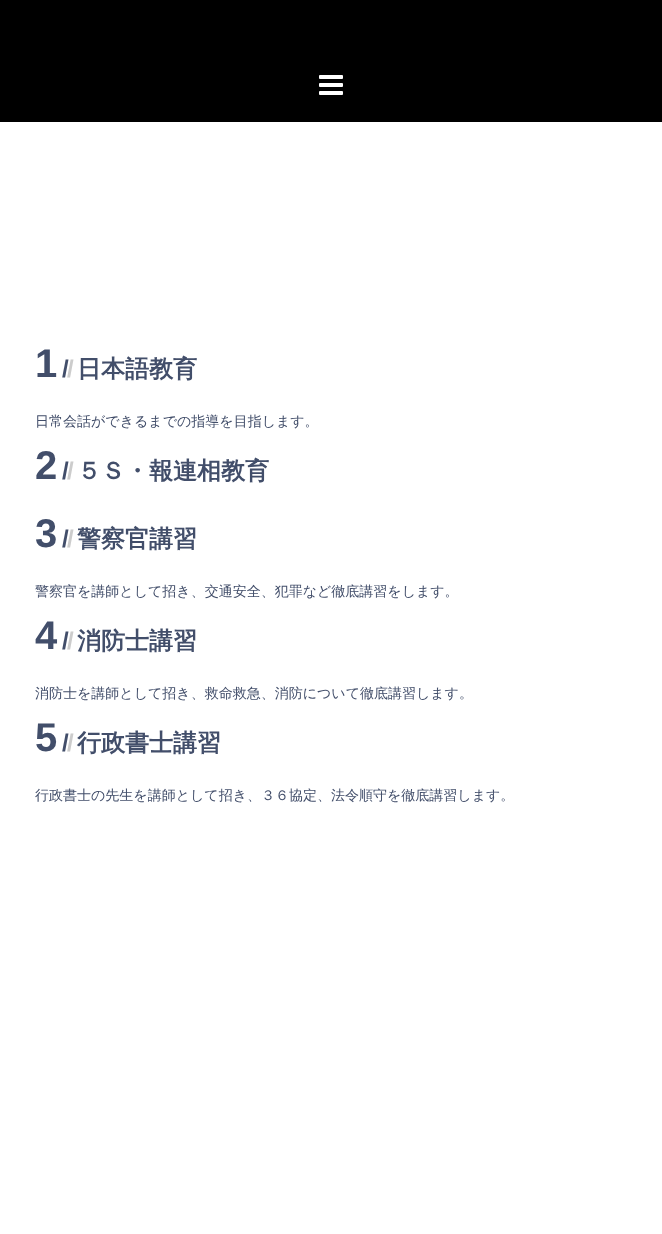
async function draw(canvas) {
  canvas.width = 662
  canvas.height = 1234
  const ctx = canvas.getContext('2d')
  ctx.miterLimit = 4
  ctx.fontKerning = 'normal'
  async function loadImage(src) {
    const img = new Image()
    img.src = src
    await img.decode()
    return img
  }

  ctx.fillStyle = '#fff'
  ctx.fillRect(0, 0, 662, 1234)
  ctx.fillStyle = '#000'
  ctx.fillRect(0, 0, 662, 122)
  ctx.drawImage(await loadImage('image0.png'), 319, 75, 24, 20)
  ctx.font = 'bold 40px Liberation Sans'
  ctx.fillStyle = '#424e6a'
  ctx.fillText('1', 35, 377)
  ctx.letterSpacing = '-2px'
  ctx.font = 'bold 24px Liberation Sans'
  ctx.fillText('/', 62, 377)
  ctx.fillStyle = '#ccc'
  ctx.fillText('/', 67, 377)
  ctx.letterSpacing = '0px'
  ctx.font = 'bold 24px WenQuanYi Zen Hei'
  ctx.fillStyle = '#424e6a'
  ctx.fillText('日本語教育', 77, 377)
  ctx.font = '500 14px WenQuanYi Zen Hei'
  ctx.fillText('日常会話ができるまでの指導を目指します。', 35, 426)
  ctx.font = 'bold 40px Liberation Sans'
  ctx.fillText('2', 35, 479)
  ctx.letterSpacing = '-2px'
  ctx.font = 'bold 24px Liberation Sans'
  ctx.fillText('/', 62, 479)
  ctx.fillStyle = '#ccc'
  ctx.fillText('/', 67, 479)
  ctx.letterSpacing = '0px'
  ctx.font = 'bold 24px WenQuanYi Zen Hei'
  ctx.fillStyle = '#424e6a'
  ctx.fillText('５Ｓ・報連相教育', 77, 479)
  ctx.font = 'bold 40px Liberation Sans'
  ctx.fillText('3', 35, 547)
  ctx.letterSpacing = '-2px'
  ctx.font = 'bold 24px Liberation Sans'
  ctx.fillText('/', 62, 547)
  ctx.fillStyle = '#ccc'
  ctx.fillText('/', 67, 547)
  ctx.letterSpacing = '0px'
  ctx.font = 'bold 24px WenQuanYi Zen Hei'
  ctx.fillStyle = '#424e6a'
  ctx.fillText('警察官講習', 77, 547)
  ctx.font = '500 14px WenQuanYi Zen Hei'
  ctx.fillText('警察官を講師として招き、交通安全、犯罪など徹底講習をします。', 35, 596)
  ctx.font = 'bold 40px Liberation Sans'
  ctx.fillText('4', 35, 649)
  ctx.letterSpacing = '-2px'
  ctx.font = 'bold 24px Liberation Sans'
  ctx.fillText('/', 62, 649)
  ctx.fillStyle = '#ccc'
  ctx.fillText('/', 67, 649)
  ctx.letterSpacing = '0px'
  ctx.font = 'bold 24px WenQuanYi Zen Hei'
  ctx.fillStyle = '#424e6a'
  ctx.fillText('消防士講習', 77, 649)
  ctx.font = '500 14px WenQuanYi Zen Hei'
  ctx.fillText('消防士を講師として招き、救命救急、消防について徹底講習します。', 35, 698)
  ctx.font = 'bold 40px Liberation Sans'
  ctx.fillText('5', 35, 751)
  ctx.letterSpacing = '-2px'
  ctx.font = 'bold 24px Liberation Sans'
  ctx.fillText('/', 62, 751)
  ctx.fillStyle = '#ccc'
  ctx.fillText('/', 67, 751)
  ctx.letterSpacing = '0px'
  ctx.font = 'bold 24px WenQuanYi Zen Hei'
  ctx.fillStyle = '#424e6a'
  ctx.fillText('行政書士講習', 77, 751)
  ctx.font = '500 14px WenQuanYi Zen Hei'
  ctx.fillText('行政書士の先生を講師として招き、３６協定、法令順守を徹底講習します。', 35, 800)
}

draw(document.querySelector('canvas'))
